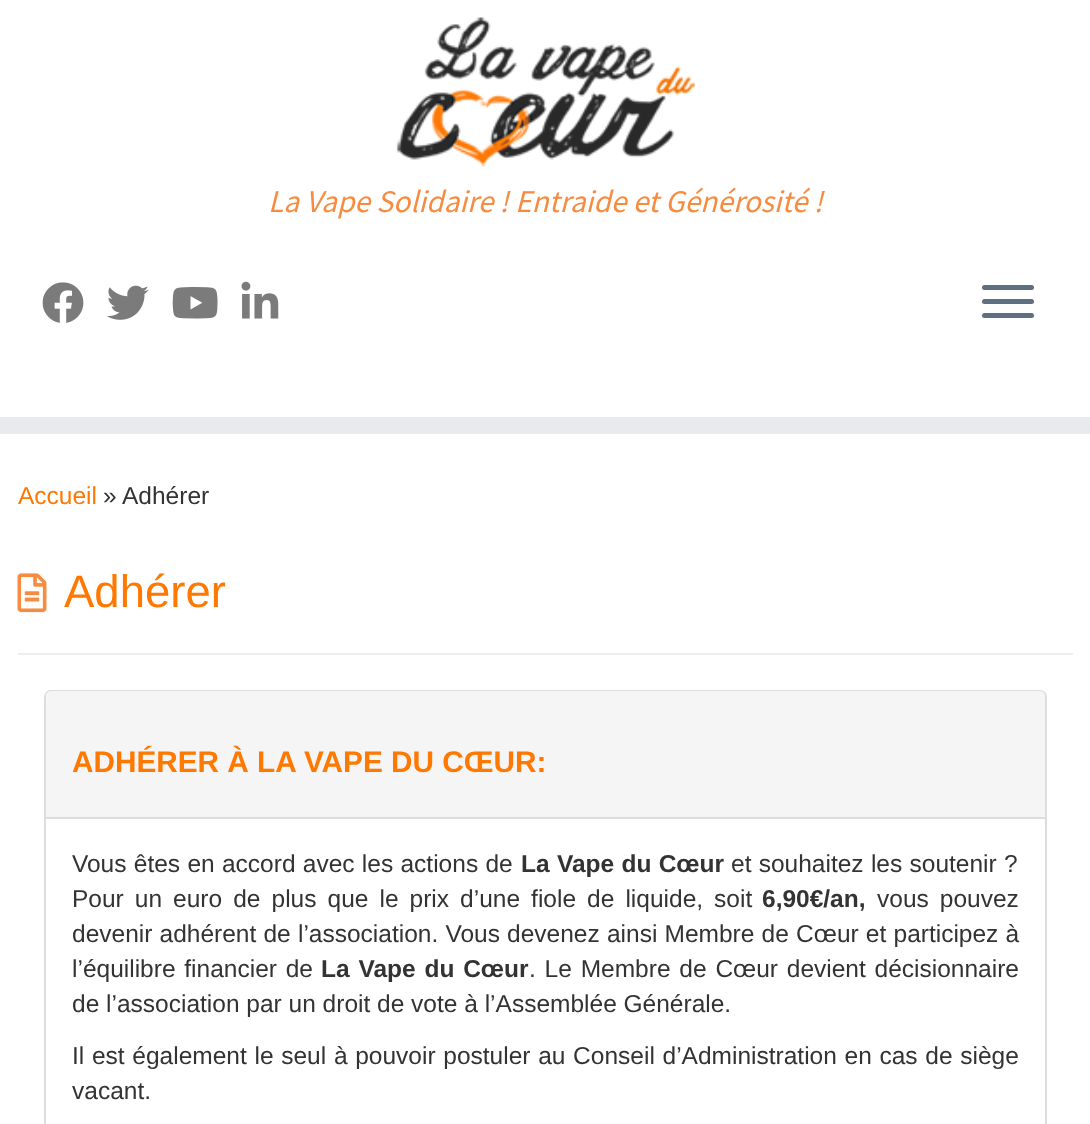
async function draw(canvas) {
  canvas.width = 1090
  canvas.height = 1124
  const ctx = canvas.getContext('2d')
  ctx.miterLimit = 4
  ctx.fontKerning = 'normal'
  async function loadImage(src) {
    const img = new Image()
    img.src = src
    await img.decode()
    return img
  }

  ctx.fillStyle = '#fff'
  ctx.fillRect(0, 0, 1090, 1124)
  ctx.fillStyle = '#e9eaee'
  ctx.fillRect(0, 417, 1090, 17)
  ctx.drawImage(await loadImage('image0.png'), 396, 17, 299, 150)
  ctx.font = 'italic 31.5px Source Sans Pro'
  ctx.fillStyle = '#f78c40'
  ctx.fillText('La Vape Solidaire ! Entraide et Générosité !', 268, 212)
  ctx.drawImage(await loadImage('image1.png'), 42, 282, 42, 41)
  ctx.drawImage(await loadImage('image2.png'), 107, 285, 42, 35)
  ctx.drawImage(await loadImage('image3.png'), 172, 287, 46, 32)
  ctx.drawImage(await loadImage('image4.png'), 241, 281, 38, 38)
  ctx.fillStyle = '#5f6f81'
  ctx.beginPath()
  ctx.roundRect(982, 285, 52, 5, 2.5)
  ctx.fill()
  ctx.beginPath()
  ctx.roundRect(982, 299, 52, 5, 2.5)
  ctx.fill()
  ctx.beginPath()
  ctx.roundRect(982, 313, 52, 5, 2.5)
  ctx.fill()
  ctx.font = '24.5px Liberation Sans'
  ctx.fillStyle = '#ff7800'
  ctx.fillText('Accueil', 18, 504)
  ctx.fillStyle = '#333'
  ctx.fillText('»', 103, 504)
  ctx.fillText('Adhérer', 122, 504)
  ctx.drawImage(await loadImage('image5.png'), 17, 573, 30, 40)
  ctx.font = '45.5px Liberation Sans'
  ctx.fillStyle = '#ff7800'
  ctx.fillText('Adhérer', 64, 607)
  ctx.fillStyle = '#eee'
  ctx.fillRect(18, 653, 1055, 2)
  ctx.beginPath()
  ctx.roundRect(45, 691, 1001, 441, 6)
  ctx.strokeStyle = '#ddd'
  ctx.lineWidth = 2
  ctx.stroke()
  ctx.fillStyle = '#f5f5f5'
  ctx.beginPath()
  ctx.roundRect(46, 691, 999, 128, [5, 5, 0, 0])
  ctx.fill()
  ctx.fillStyle = '#ddd'
  ctx.fillRect(46, 817, 999, 2)
  ctx.font = 'bold 29.75px Liberation Sans'
  ctx.fillStyle = '#ff7800'
  ctx.fillText('ADHÉRER À LA VAPE DU CŒUR:', 72, 772)
  ctx.wordSpacing = '0.5px'
  ctx.font = '24.5px Liberation Sans'
  ctx.fillStyle = '#333'
  ctx.fillText('Vous êtes en accord avec les actions de', 72, 872)
  ctx.font = 'bold 24.5px Liberation Sans'
  ctx.fillText('La Vape du Cœur', 521, 872)
  ctx.font = '24.5px Liberation Sans'
  ctx.fillText('et souhaitez les soutenir ?', 731, 872)
  ctx.wordSpacing = '4.25px'
  ctx.fillText('Pour un euro de plus que le prix d’une fiole de liquide, soit', 72, 907)
  ctx.wordSpacing = '0px'
  ctx.font = 'bold 24.5px Liberation Sans'
  ctx.fillText('6,90€/an,', 762, 907)
  ctx.wordSpacing = '4.25px'
  ctx.font = '24.5px Liberation Sans'
  ctx.fillText('vous pouvez', 877, 907)
  ctx.wordSpacing = '0.4px'
  ctx.fillText('devenir adhérent de l’association. Vous devenez ainsi Membre de Cœur et participez à', 72, 942)
  ctx.wordSpacing = '2px'
  ctx.fillText('l’équilibre financier de', 72, 977)
  ctx.font = 'bold 24.5px Liberation Sans'
  ctx.fillText('La Vape du Cœur', 321, 977)
  ctx.font = '24.5px Liberation Sans'
  ctx.fillText('. Le Membre de Cœur devient décisionnaire', 529, 977)
  ctx.wordSpacing = '0px'
  ctx.fillText('de l’association par un droit de vote à l’Assemblée Générale.', 72, 1012)
  ctx.wordSpacing = '0.9px'
  ctx.fillText('Il est également le seul à pouvoir postuler au Conseil d’Administration en cas de siège', 72, 1064)
  ctx.wordSpacing = '0px'
  ctx.fillText('vacant.', 72, 1099)
}

draw(document.querySelector('canvas'))
